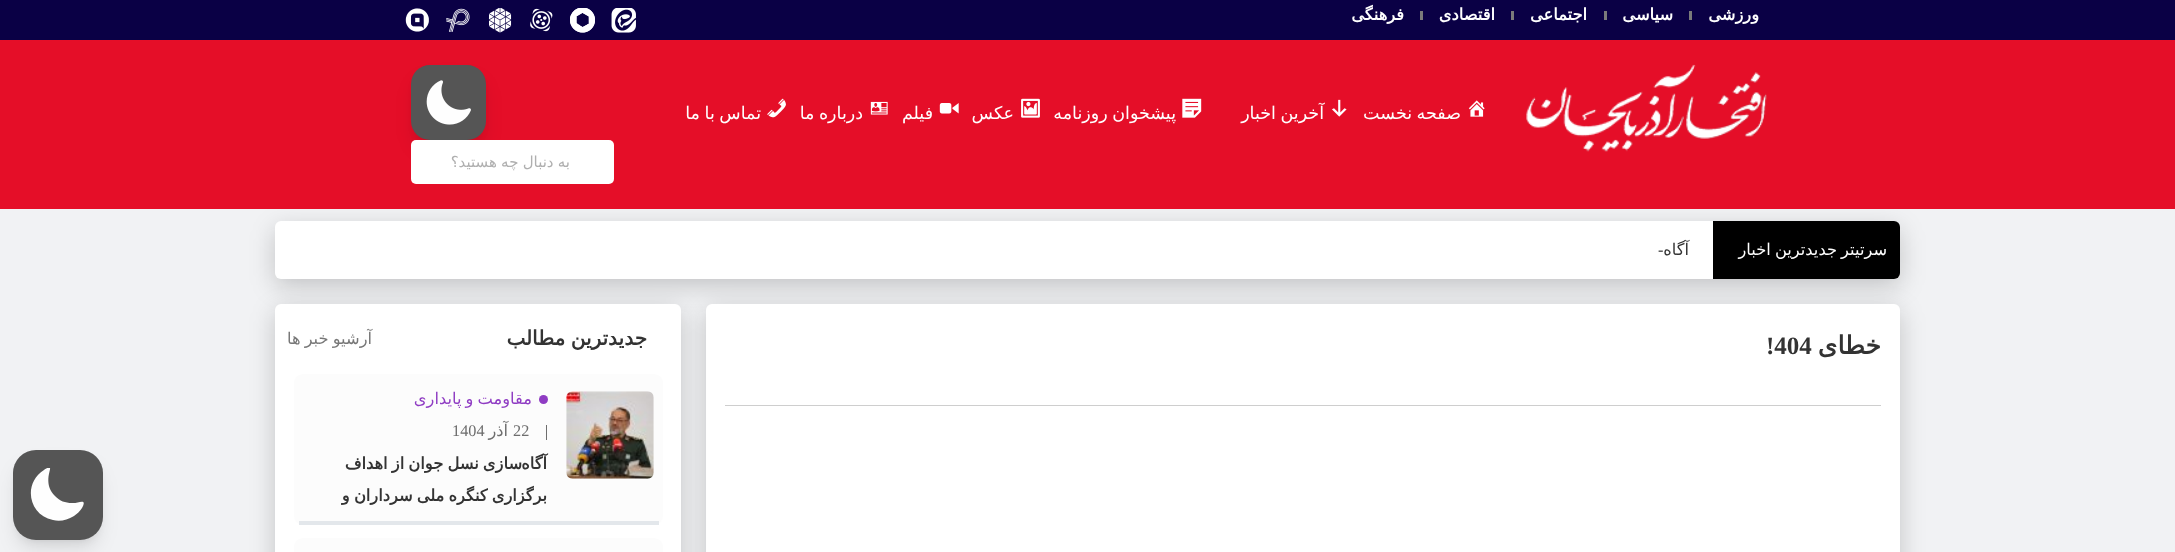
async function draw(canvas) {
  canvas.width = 2175
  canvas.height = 552
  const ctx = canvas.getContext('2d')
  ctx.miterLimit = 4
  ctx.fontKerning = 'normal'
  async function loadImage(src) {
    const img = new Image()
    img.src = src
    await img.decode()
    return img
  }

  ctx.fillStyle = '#f1f2f4'
  ctx.fillRect(0, 0, 2175, 552)
  ctx.fillStyle = '#0a0045'
  ctx.fillRect(0, 0, 2175, 40)
  ctx.direction = 'rtl'
  ctx.font = 'bold 16.25px DejaVu Sans'
  ctx.fillStyle = '#fff'
  ctx.fillText('ورزشی', 1759, 20)
  ctx.fillStyle = '#7a7a7a'
  ctx.fillRect(1689, 11, 3, 9)
  ctx.fillStyle = '#fff'
  ctx.fillText('سیاسی', 1673, 20)
  ctx.fillStyle = '#7a7a7a'
  ctx.fillRect(1604, 11, 3, 9)
  ctx.fillStyle = '#fff'
  ctx.fillText('اجتماعی', 1587, 20)
  ctx.fillStyle = '#7a7a7a'
  ctx.fillRect(1511, 11, 3, 9)
  ctx.fillStyle = '#fff'
  ctx.fillText('اقتصادی', 1495, 20)
  ctx.fillStyle = '#7a7a7a'
  ctx.fillRect(1420, 11, 3, 9)
  ctx.fillStyle = '#fff'
  ctx.fillText('فرهنگی', 1404, 20)
  ctx.drawImage(await loadImage('image0.png'), 611, 8, 25, 25)
  ctx.drawImage(await loadImage('image1.png'), 570, 8, 25, 25)
  ctx.drawImage(await loadImage('image2.png'), 530, 8, 23, 24)
  ctx.drawImage(await loadImage('image3.png'), 488, 8, 24, 25)
  ctx.drawImage(await loadImage('image4.png'), 446, 8, 24, 24)
  ctx.drawImage(await loadImage('image5.png'), 405, 8, 24, 24)
  ctx.fillStyle = '#0b0b0b33'
  ctx.filter = 'blur(12.5px)'
  ctx.beginPath()
  ctx.roundRect(275, 229, 1625, 57, 6)
  ctx.fill()
  ctx.filter = 'none'
  ctx.fillStyle = '#e50e28'
  ctx.fillRect(0, 40, 2175, 169)
  ctx.drawImage(await loadImage('image6.png'), 1526, 64, 241, 88)
  ctx.drawImage(await loadImage('image7.png'), 1468, 100, 17, 17)
  ctx.wordSpacing = '-1px'
  ctx.font = '17.5px DejaVu Sans'
  ctx.fillStyle = '#fff'
  ctx.fillText('صفحه نخست', 1461, 119)
  ctx.drawImage(await loadImage('image8.png'), 1332, 99, 15, 18)
  ctx.fillText('آخرین اخبار', 1324, 119)
  ctx.drawImage(await loadImage('image9.png'), 1182, 98, 20, 20)
  ctx.fillText('پیشخوان روزنامه', 1176, 119)
  ctx.drawImage(await loadImage('image10.png'), 1021, 98, 19, 20)
  ctx.wordSpacing = '0px'
  ctx.fillText('عکس', 1014, 119)
  ctx.drawImage(await loadImage('image11.png'), 939, 103, 20, 11)
  ctx.fillText('فیلم', 933, 119)
  ctx.drawImage(await loadImage('image12.png'), 870, 101, 18, 14)
  ctx.wordSpacing = '-1px'
  ctx.fillText('درباره ما', 863, 119)
  ctx.drawImage(await loadImage('image13.png'), 767, 98, 19, 20)
  ctx.fillText('تماس با ما', 761, 119)
  ctx.fillStyle = '#0000001a'
  ctx.filter = 'blur(4px)'
  ctx.beginPath()
  ctx.roundRect(416, 75, 65, 65, 14)
  ctx.fill()
  ctx.filter = 'none'
  ctx.filter = 'blur(9.5px)'
  ctx.beginPath()
  ctx.roundRect(415, 81, 68, 68, 15)
  ctx.fill()
  ctx.filter = 'none'
  ctx.fillStyle = '#555'
  ctx.beginPath()
  ctx.roundRect(411, 65, 75, 75, 19)
  ctx.fill()
  ctx.drawImage(await loadImage('image14.png'), 426, 80, 45, 45)
  ctx.fillStyle = '#fff'
  ctx.beginPath()
  ctx.roundRect(411, 140, 203, 44, 5)
  ctx.fill()
  ctx.wordSpacing = '-0.5px'
  ctx.font = '15px DejaVu Sans'
  ctx.fillStyle = '#afafaf'
  ctx.fillText('به دنبال چه هستید؟', 570, 167)
  ctx.fillStyle = '#fff'
  ctx.beginPath()
  ctx.roundRect(275, 221, 1625, 58, 6)
  ctx.fill()
  ctx.fillStyle = '#0b0b0b33'
  ctx.filter = 'blur(12.5px)'
  ctx.beginPath()
  ctx.roundRect(706, 311, 1194, 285, 6)
  ctx.fill()
  ctx.filter = 'none'
  ctx.fillStyle = '#000'
  ctx.beginPath()
  ctx.roundRect(1713, 221, 187, 58, [0, 6, 6, 0])
  ctx.fill()
  ctx.wordSpacing = '-1px'
  ctx.font = '16.25px DejaVu Sans'
  ctx.fillStyle = '#fff'
  ctx.fillText('سرتیتر جدیدترین اخبار', 1887, 255)
  ctx.wordSpacing = '0px'
  ctx.fillStyle = '#333'
  ctx.fillText('آگاه', 1689, 255)
  ctx.direction = 'ltr'
  ctx.font = '16.25px Liberation Serif'
  ctx.fillText('-', 1658, 255)
  ctx.fillStyle = '#fff'
  ctx.beginPath()
  ctx.roundRect(706, 304, 1194, 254, 6)
  ctx.fill()
  ctx.fillStyle = '#cecece'
  ctx.fillRect(725, 405, 1156, 1)
  ctx.direction = 'rtl'
  ctx.font = 'bold 25px DejaVu Sans'
  ctx.fillStyle = '#333'
  ctx.fillText('خطای', 1881, 354)
  ctx.direction = 'ltr'
  ctx.font = 'bold 25px Liberation Serif'
  ctx.fillText('!404', 1766, 354)
  ctx.fillStyle = '#0b0b0b33'
  ctx.filter = 'blur(12.5px)'
  ctx.beginPath()
  ctx.roundRect(275, 311, 406, 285, 6)
  ctx.fill()
  ctx.filter = 'none'
  ctx.fillStyle = '#fff'
  ctx.beginPath()
  ctx.roundRect(275, 304, 406, 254, 6)
  ctx.fill()
  ctx.wordSpacing = '-1px'
  ctx.direction = 'rtl'
  ctx.font = 'bold 20px DejaVu Sans'
  ctx.fillStyle = '#333'
  ctx.fillText('جدیدترین مطالب', 647, 345)
  ctx.font = '16.25px DejaVu Sans'
  ctx.fillStyle = '#777'
  ctx.fillText('آرشیو خبر ها', 372, 344)
  ctx.fillStyle = '#fcfcfc'
  ctx.beginPath()
  ctx.roundRect(294, 374, 369, 151, 9)
  ctx.fill()
  ctx.fillStyle = '#e3e7eb'
  ctx.fillRect(299, 521, 360, 4)
  ctx.drawImage(await loadImage('image15.png'), 566, 391, 88, 88)
  ctx.fillStyle = '#8f3cc3'
  ctx.beginPath()
  ctx.arc(543.5, 399.5, 4.5, 0, 2 * Math.PI)
  ctx.fill()
  ctx.fillText('مقاومت و پایداری', 532, 404)
  ctx.fillStyle = '#6e6e6e'
  ctx.fillRect(546, 425, 1, 15)
  ctx.wordSpacing = '0px'
  ctx.direction = 'ltr'
  ctx.font = '16.25px Liberation Serif'
  ctx.fillText('22', 513, 436)
  ctx.direction = 'rtl'
  ctx.font = '16.25px DejaVu Sans'
  ctx.fillText('آذر', 508, 436)
  ctx.direction = 'ltr'
  ctx.font = '16.25px Liberation Serif'
  ctx.fillText('1404', 452, 436)
  ctx.direction = 'rtl'
  ctx.font = 'bold 16.25px DejaVu Sans'
  ctx.fillStyle = '#333'
  ctx.fillText('آگاه', 547, 469)
  ctx.wordSpacing = '-1px'
  ctx.fillText('سازی نسل جوان از اهداف', 522, 469)
  ctx.fillText('برگزاری کنگره ملی سرداران و', 547, 501)
  ctx.fillStyle = '#fcfcfc'
  ctx.beginPath()
  ctx.roundRect(294, 538, 369, 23, 9)
  ctx.fill()
  ctx.fillStyle = '#0000001a'
  ctx.filter = 'blur(4px)'
  ctx.beginPath()
  ctx.roundRect(18, 460, 80, 80, 18)
  ctx.fill()
  ctx.filter = 'none'
  ctx.filter = 'blur(9.5px)'
  ctx.beginPath()
  ctx.roundRect(16, 466, 83, 83, 19)
  ctx.fill()
  ctx.filter = 'none'
  ctx.fillStyle = '#555'
  ctx.beginPath()
  ctx.roundRect(13, 450, 90, 90, 23)
  ctx.fill()
  ctx.save()
  ctx.beginPath()
  ctx.rect(30, 468, 55, 55)
  ctx.clip()
  ctx.fillStyle = '#fefefe'
  ctx.beginPath()
  ctx.moveTo(50, 468)
  ctx.bezierCurveTo(51, 470, 43, 484, 55, 496)
  ctx.bezierCurveTo(60, 501, 65, 503, 72, 503)
  ctx.bezierCurveTo(77, 504, 88, 497, 82, 508)
  ctx.bezierCurveTo(80, 511, 77, 514, 74, 516)
  ctx.bezierCurveTo(67, 520, 60, 522, 53, 520)
  ctx.bezierCurveTo(28, 515, 23, 483, 44, 470)
  ctx.bezierCurveTo(45, 469, 48, 467, 50, 468)
  ctx.closePath()
  ctx.fill('evenodd')
  ctx.restore()
}

draw(document.querySelector('canvas'))
